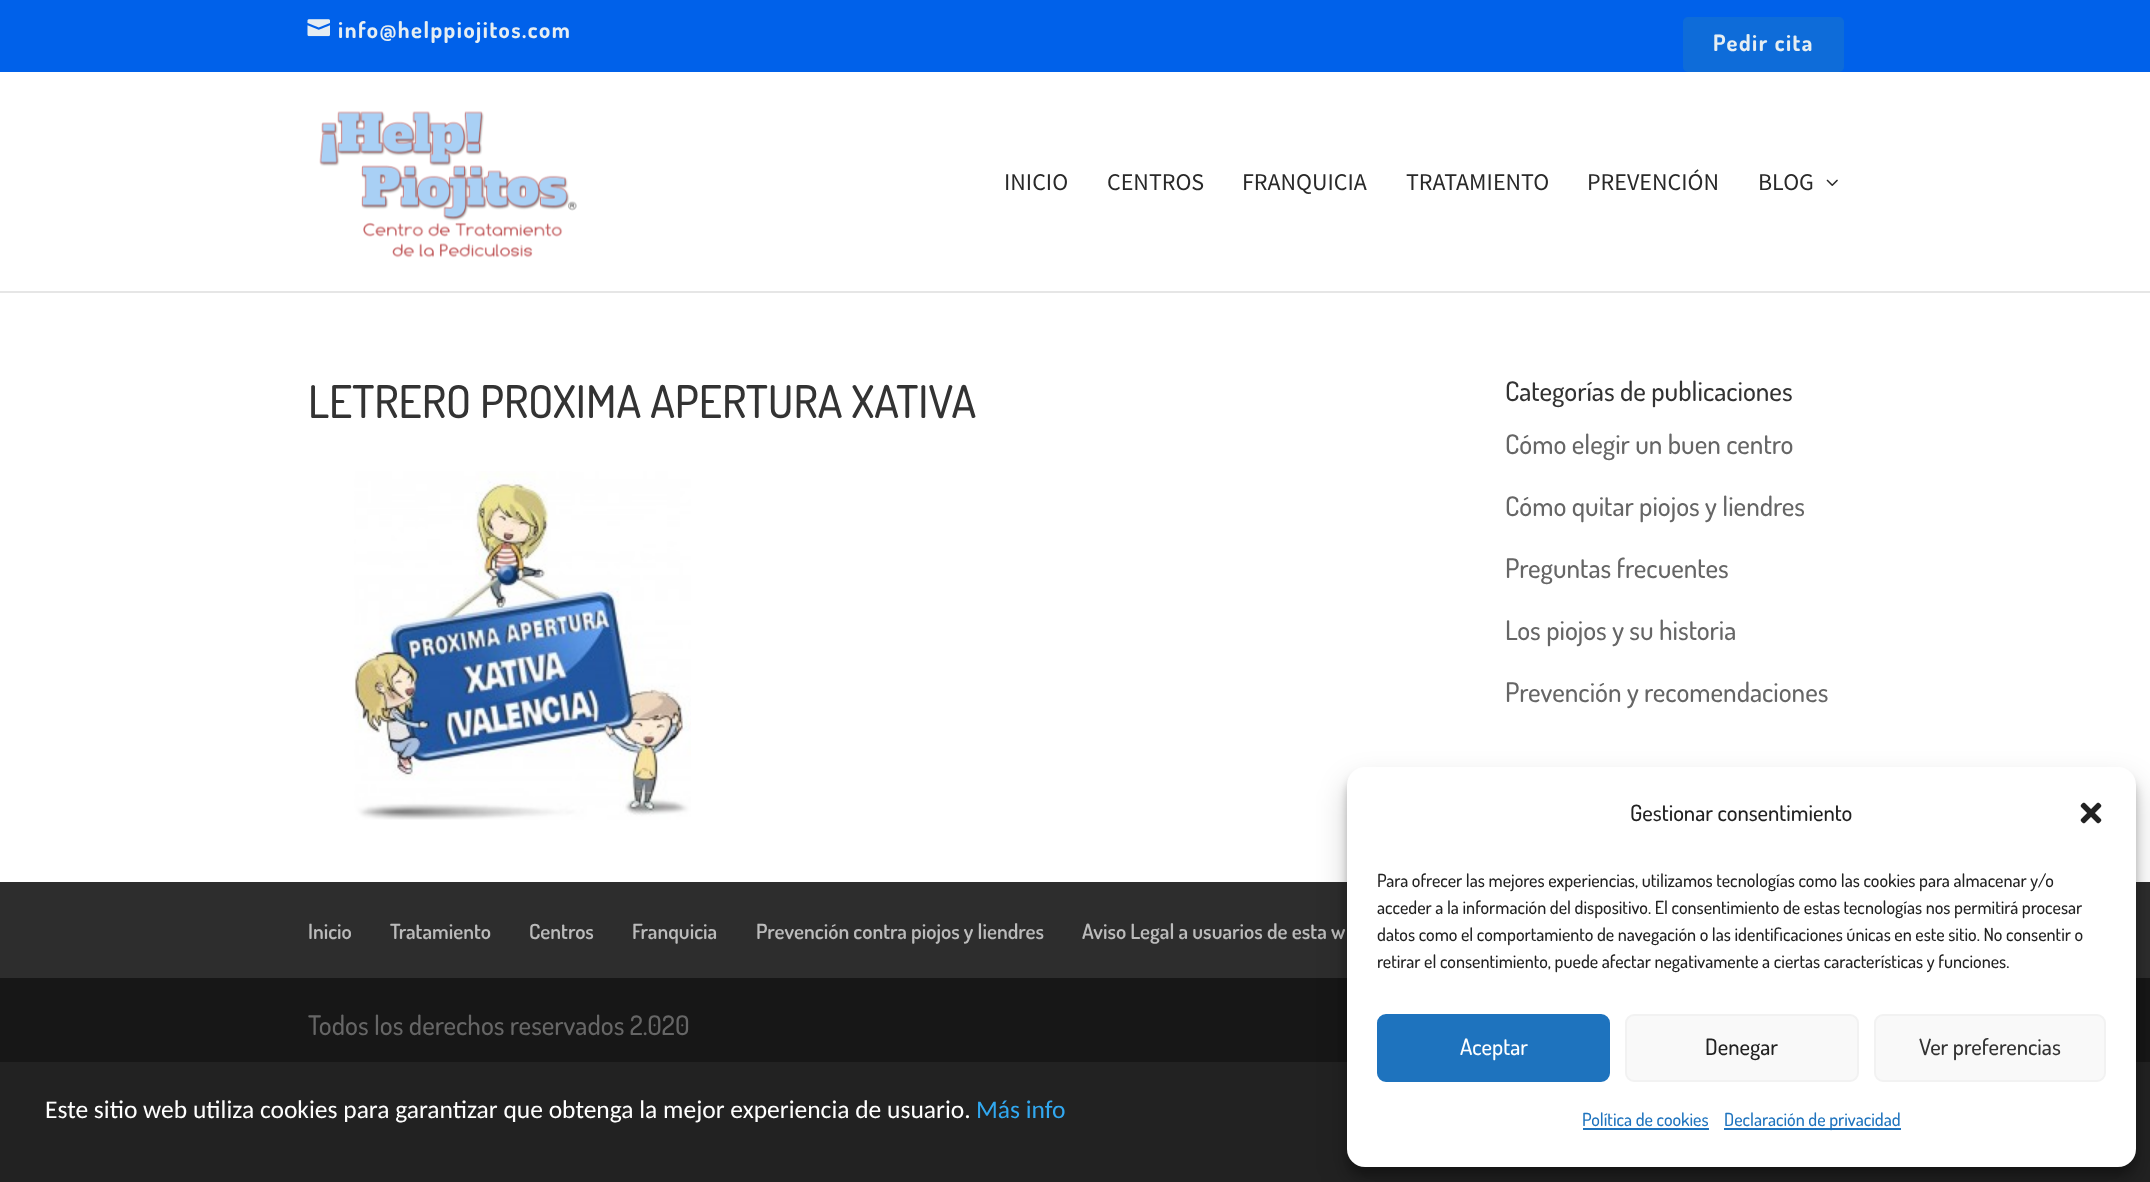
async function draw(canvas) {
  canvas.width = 2150
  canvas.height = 1182
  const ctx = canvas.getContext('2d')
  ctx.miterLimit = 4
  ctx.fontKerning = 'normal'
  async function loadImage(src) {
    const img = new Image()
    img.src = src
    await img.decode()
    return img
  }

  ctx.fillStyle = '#fff'
  ctx.fillRect(0, 0, 2150, 1182)
  ctx.fillStyle = '#0061ea'
  ctx.fillRect(0, 0, 2150, 72)
  ctx.drawImage(await loadImage('image0.png'), 307, 19, 23, 18)
  ctx.letterSpacing = '1.5px'
  ctx.font = 'bold 22.5px Dosis'
  ctx.fillStyle = '#e6eef2'
  ctx.fillText('info@helppiojitos.com', 338, 38)
  ctx.fillStyle = '#0e6cd9'
  ctx.beginPath()
  ctx.roundRect(1683, 17, 161, 55, 5)
  ctx.fill()
  ctx.fillStyle = '#e6eef2'
  ctx.fillText('Pedir cita', 1713, 51)
  ctx.fillStyle = '#e6e6e6'
  ctx.fillRect(0, 291, 2150, 2)
  ctx.drawImage(await loadImage('image1.png'), 319, 111, 258, 147)
  ctx.letterSpacing = '0px'
  ctx.font = '24px Source Sans Pro'
  ctx.fillStyle = '#292929'
  ctx.fillText('INICIO', 1004, 190)
  ctx.fillText('CENTROS', 1107, 190)
  ctx.fillText('FRANQUICIA', 1242, 190)
  ctx.fillText('TRATAMIENTO', 1406, 190)
  ctx.fillText('PREVENCIÓN', 1587, 190)
  ctx.fillText('BLOG', 1758, 190)
  ctx.drawImage(await loadImage('image2.png'), 1826, 179, 12, 7)
  ctx.font = '500 45px Dosis'
  ctx.fillStyle = '#333'
  ctx.fillText('LETRERO PROXIMA APERTURA XATIVA', 308, 418)
  ctx.drawImage(await loadImage('image3.png'), 354, 471, 337, 349)
  ctx.font = '500 27px Dosis'
  ctx.fillText('Categorías de publicaciones', 1505, 401)
  ctx.fillStyle = '#666'
  ctx.fillText('Cómo elegir un buen centro', 1505, 454)
  ctx.fillText('Cómo quitar piojos y liendres', 1505, 516)
  ctx.fillText('Preguntas frecuentes', 1505, 578)
  ctx.fillText('Los piojos y su historia', 1505, 640)
  ctx.fillText('Prevención y recomendaciones', 1505, 702)
  ctx.fillStyle = '#2d2d2d'
  ctx.fillRect(0, 882, 2150, 96)
  ctx.font = '600 21px Dosis'
  ctx.fillStyle = '#bbb'
  ctx.fillText('Inicio', 308, 939)
  ctx.fillText('Tratamiento', 390, 939)
  ctx.fillText('Centros', 529, 939)
  ctx.fillText('Franquicia', 632, 939)
  ctx.fillText('Prevención contra piojos y liendres', 756, 939)
  ctx.fillText('Aviso Legal a usuarios de esta w', 1082, 939)
  ctx.fillStyle = '#171717'
  ctx.fillRect(0, 978, 2150, 84)
  ctx.font = '500 27px Dosis'
  ctx.fillStyle = '#666'
  ctx.fillText('Todos los derechos reservados 2.020', 308, 1035)
  ctx.fillStyle = '#222'
  ctx.fillRect(0, 1062, 2150, 120)
  ctx.font = '25.5px Carlito'
  ctx.fillStyle = '#fff'
  ctx.fillText('Este sitio web utiliza cookies para garantizar que obtenga la mejor experiencia de usuario.', 45, 1118)
  ctx.fillStyle = '#31a8f0'
  ctx.fillText('Más info', 976, 1118)
  ctx.fillStyle = '#0000003b'
  ctx.filter = 'blur(4.5px)'
  ctx.beginPath()
  ctx.roundRect(1347, 776, 789, 400, 18)
  ctx.fill()
  ctx.filter = 'none'
  ctx.fillStyle = '#00000030'
  ctx.filter = 'blur(15px)'
  ctx.beginPath()
  ctx.roundRect(1347, 782, 789, 400, 18)
  ctx.fill()
  ctx.filter = 'none'
  ctx.fillStyle = '#fff'
  ctx.beginPath()
  ctx.roundRect(1347, 767, 789, 400, 18)
  ctx.fill()
  ctx.font = '500 22.5px Dosis'
  ctx.fillStyle = '#222'
  ctx.fillText('Gestionar consentimiento', 1630, 821)
  ctx.drawImage(await loadImage('image4.png'), 2080, 802, 22, 22)
  ctx.font = '500 18px Dosis'
  ctx.fillText('Para ofrecer las mejores experiencias, utilizamos tecnologías como las cookies para almacenar y/o', 1377, 887)
  ctx.fillText('acceder a la información del dispositivo. El consentimiento de estas tecnologías nos permitirá procesar', 1377, 914)
  ctx.fillText('datos como el comportamiento de navegación o las identificaciones únicas en este sitio. No consentir o', 1377, 941)
  ctx.fillText('retirar el consentimiento, puede afectar negativamente a ciertas características y funciones.', 1377, 968)
  ctx.fillStyle = '#1e73be'
  ctx.beginPath()
  ctx.roundRect(1378, 1015, 231, 66, 8)
  ctx.fill()
  ctx.strokeStyle = '#1e73be'
  ctx.lineWidth = 2
  ctx.stroke()
  ctx.font = '500 22.5px Dosis'
  ctx.fillStyle = '#fff'
  ctx.fillText('Aceptar', 1460, 1055)
  ctx.fillStyle = '#f9f9f9'
  ctx.beginPath()
  ctx.roundRect(1626, 1015, 232, 66, 8)
  ctx.fill()
  ctx.strokeStyle = '#f2f2f2'
  ctx.stroke()
  ctx.fillStyle = '#222'
  ctx.fillText('Denegar', 1705, 1055)
  ctx.fillStyle = '#f9f9f9'
  ctx.beginPath()
  ctx.roundRect(1875, 1015, 230, 66, 8)
  ctx.fill()
  ctx.stroke()
  ctx.fillStyle = '#333'
  ctx.fillText('Ver preferencias', 1919, 1055)
  ctx.font = '500 18px Dosis'
  ctx.fillStyle = '#1e73be'
  ctx.fillText('Política de cookies', 1582, 1126)
  ctx.fillRect(1583, 1128, 126, 2)
  ctx.fillRect(1724, 1128, 177, 2)
  ctx.fillText('Declaración de privacidad', 1724, 1126)
}

draw(document.querySelector('canvas'))
